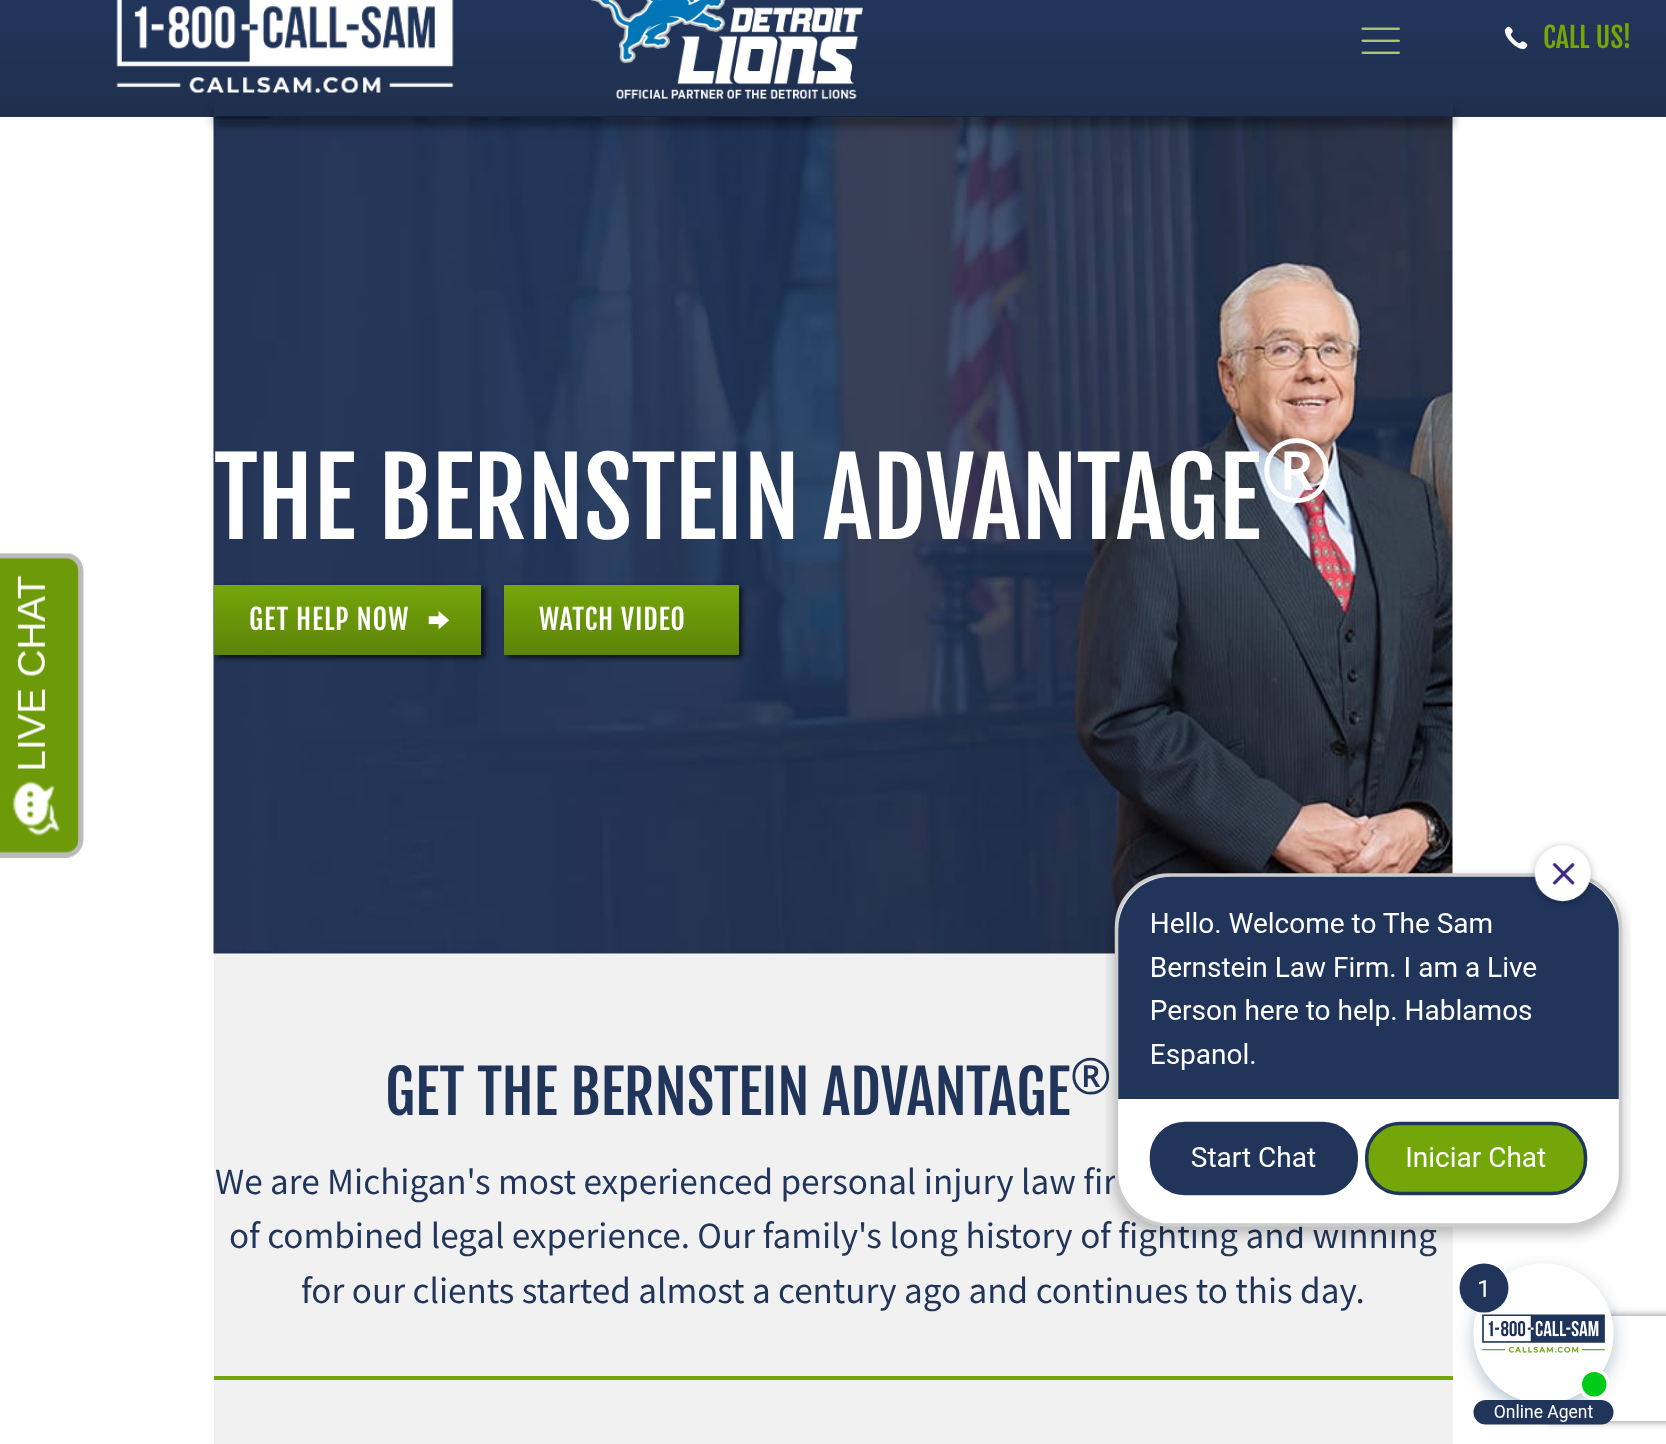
async function draw(canvas) {
  canvas.width = 1666
  canvas.height = 1444
  const ctx = canvas.getContext('2d')
  ctx.miterLimit = 4
  ctx.fontKerning = 'normal'
  async function loadImage(src) {
    const img = new Image()
    img.src = src
    await img.decode()
    return img
  }
  let gradient

  ctx.fillStyle = '#fff'
  ctx.fillRect(0, 0, 1666, 1444)
  ctx.drawImage(await loadImage('image0.png'), 0, 553, 84, 305)
  ctx.fillStyle = '#21355b'
  ctx.fillRect(0, 116, 1666, 1)
  gradient = ctx.createLinearGradient(833, -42, 833, 116)
  gradient.addColorStop(0, '#21355b')
  gradient.addColorStop(0.35, '#21355b')
  gradient.addColorStop(1, '#1f2f4d')
  ctx.fillStyle = gradient
  ctx.fillRect(0, 0, 1666, 116)
  ctx.drawImage(await loadImage('image1.png'), 116, 0, 338, 93)
  ctx.drawImage(await loadImage('image2.png'), 591, 0, 272, 99)
  ctx.drawImage(await loadImage('image3.png'), 1361, 27, 39, 27)
  ctx.drawImage(await loadImage('image4.png'), 1504, 26, 24, 24)
  ctx.font = '28px Fjalla One'
  ctx.fillStyle = '#74a60a'
  ctx.fillText('CALL US!', 1543, 48)
  ctx.drawImage(await loadImage('image5.png'), 213, 117, 1240, 837)
  ctx.save()
  ctx.beginPath()
  ctx.moveTo(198, 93)
  ctx.lineTo(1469, 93)
  ctx.lineTo(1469, 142)
  ctx.lineTo(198, 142)
  ctx.closePath()
  ctx.moveTo(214, 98)
  ctx.lineTo(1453, 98)
  ctx.lineTo(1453, 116)
  ctx.lineTo(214, 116)
  ctx.closePath()
  ctx.clip('evenodd')
  ctx.fillStyle = '#00000066'
  ctx.filter = 'blur(5px)'
  ctx.beginPath()
  ctx.rect(214, 109, 1239, 17)
  ctx.fill()
  ctx.filter = 'none'
  ctx.restore()
  ctx.font = '105px Fjalla One'
  ctx.fillStyle = '#fff'
  ctx.fillText('THE BERNSTEIN ADVANTAGE', 214, 539)
  ctx.font = '88px Noto Sans'
  ctx.fillText('®', 1260, 502)
  ctx.fillStyle = '#000000b3'
  ctx.filter = 'blur(2.5px)'
  ctx.beginPath()
  ctx.rect(217, 588, 268, 70)
  ctx.fill()
  ctx.filter = 'none'
  gradient = ctx.createLinearGradient(347, 585, 347, 655)
  gradient.addColorStop(0, '#74a60a')
  gradient.addColorStop(1, '#5c8308')
  ctx.fillStyle = gradient
  ctx.fillRect(214, 585, 267, 70)
  ctx.letterSpacing = '0.9px'
  ctx.font = '28px Fjalla One'
  ctx.fillStyle = '#fff'
  ctx.fillText('GET HELP NOW', 249, 630)
  ctx.drawImage(await loadImage('image6.png'), 428, 611, 22, 19)
  ctx.fillStyle = '#000000b3'
  ctx.filter = 'blur(2.5px)'
  ctx.beginPath()
  ctx.rect(508, 588, 234, 70)
  ctx.fill()
  ctx.filter = 'none'
  gradient = ctx.createLinearGradient(621, 585, 621, 655)
  gradient.addColorStop(0, '#74a60a')
  gradient.addColorStop(1, '#5c8308')
  ctx.fillStyle = gradient
  ctx.fillRect(504, 585, 235, 70)
  ctx.fillStyle = '#fff'
  ctx.fillText('WATCH VIDEO', 539, 630)
  ctx.fillStyle = '#f1f1f1'
  ctx.fillRect(214, 954, 1239, 490)
  ctx.letterSpacing = '0px'
  ctx.font = '59.5px Fjalla One'
  ctx.fillStyle = '#21355b'
  ctx.fillText('GET THE BERNSTEIN ADVANTAGE', 385, 1115)
  ctx.font = '50px Noto Sans'
  ctx.fillText('®', 1070, 1094)
  ctx.font = '33.25px Noto Sans JP'
  ctx.fillText('We are Michigan\'s most experienced personal injury law fir', 215, 1194)
  ctx.fillText('of combined legal experience. Our family\'s long history of fighting and winning', 229, 1248)
  ctx.fillText('for our clients started almost a century ago and continues to this day.', 301, 1303)
  ctx.fillStyle = '#74a60a'
  ctx.fillRect(214, 1376, 1239, 4)
  ctx.save()
  ctx.beginPath()
  ctx.moveTo(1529, 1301)
  ctx.lineTo(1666, 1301)
  ctx.lineTo(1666, 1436)
  ctx.lineTo(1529, 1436)
  ctx.closePath()
  ctx.moveTo(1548, 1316)
  ctx.lineTo(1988, 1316)
  ctx.bezierCurveTo(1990, 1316, 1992, 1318, 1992, 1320)
  ctx.lineTo(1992, 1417)
  ctx.bezierCurveTo(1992, 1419, 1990, 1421, 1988, 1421)
  ctx.lineTo(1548, 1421)
  ctx.bezierCurveTo(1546, 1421, 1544, 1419, 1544, 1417)
  ctx.lineTo(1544, 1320)
  ctx.bezierCurveTo(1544, 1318, 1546, 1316, 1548, 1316)
  ctx.closePath()
  ctx.clip('evenodd')
  ctx.fillStyle = '#808080'
  ctx.filter = 'blur(4.5px)'
  ctx.beginPath()
  ctx.roundRect(1544, 1316, 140, 105, 4)
  ctx.fill()
  ctx.filter = 'none'
  ctx.restore()
  ctx.drawImage(await loadImage('image7.png'), 1105, 841, 526, 584)
}

draw(document.querySelector('canvas'))
